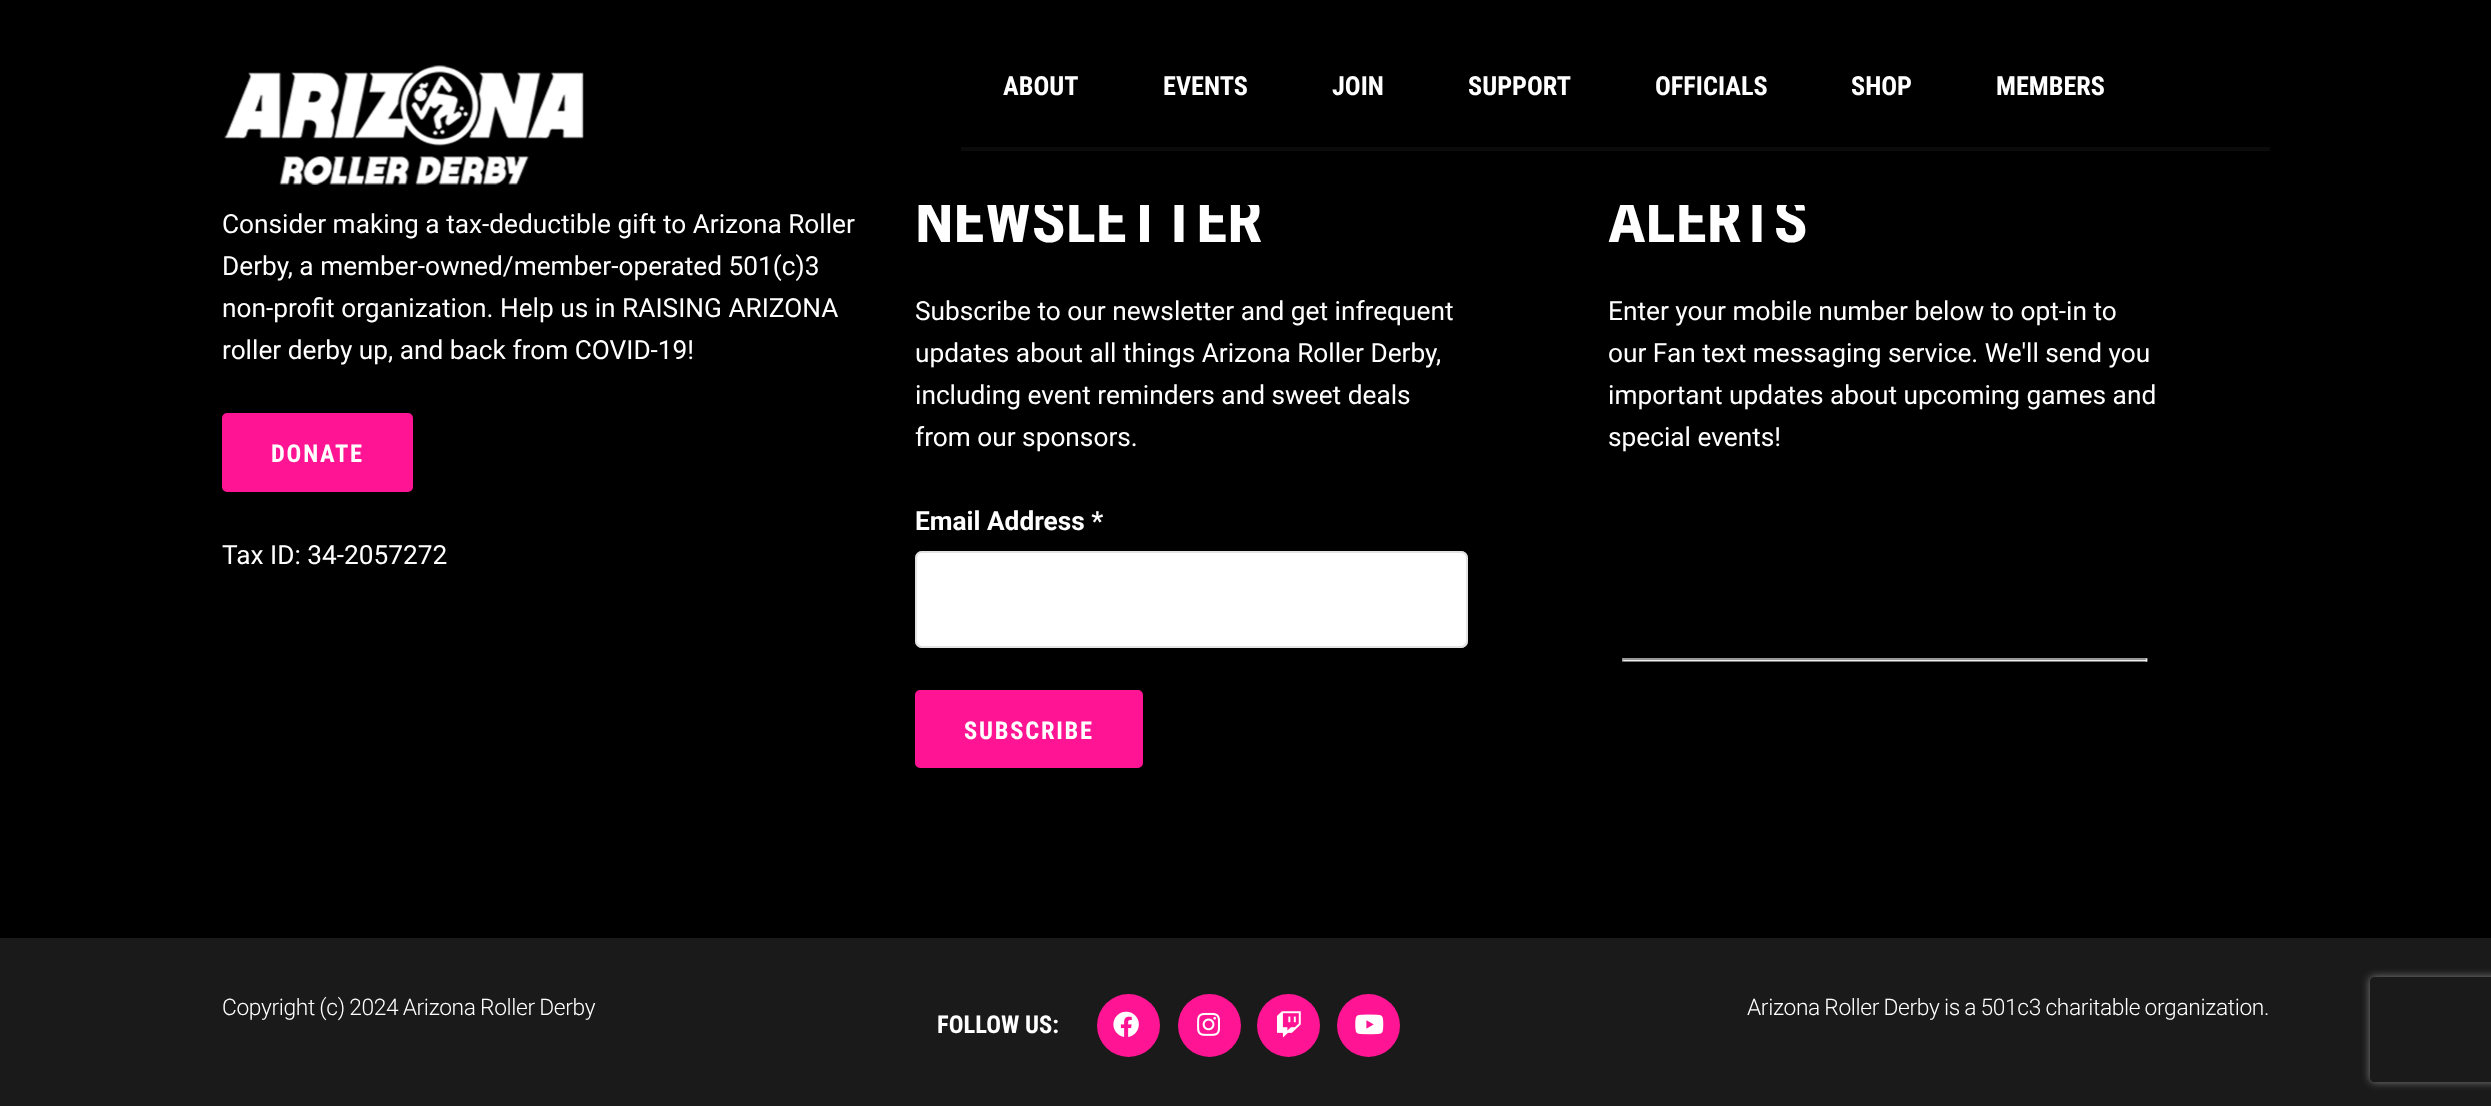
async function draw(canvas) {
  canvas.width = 2491
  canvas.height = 1106
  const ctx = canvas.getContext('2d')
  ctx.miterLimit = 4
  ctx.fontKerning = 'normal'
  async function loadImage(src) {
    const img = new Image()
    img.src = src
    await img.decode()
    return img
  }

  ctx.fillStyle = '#000'
  ctx.fillRect(0, 0, 2491, 1106)
  ctx.font = 'bold 63px Roboto Condensed'
  ctx.fillStyle = '#fff'
  ctx.fillText('NEWSLETTER', 915, 242)
  ctx.fillText('ALERTS', 1608, 242)
  ctx.fillStyle = '#000'
  ctx.fillRect(918, 196, 887, 9)
  ctx.drawImage(await loadImage('image0.png'), 224, 65, 360, 120)
  ctx.font = 'bold 26.25px Roboto Condensed'
  ctx.fillStyle = '#fff'
  ctx.fillText('ABOUT', 1003, 95)
  ctx.fillText('EVENTS', 1163, 95)
  ctx.fillText('JOIN', 1332, 95)
  ctx.fillText('SUPPORT', 1468, 95)
  ctx.fillText('OFFICIALS', 1655, 95)
  ctx.fillText('SHOP', 1851, 95)
  ctx.fillText('MEMBERS', 1996, 95)
  ctx.fillStyle = '#0b0b0b'
  ctx.fillRect(961, 147, 1309, 4)
  ctx.font = '26.25px Roboto'
  ctx.fillStyle = '#fff'
  ctx.fillText('Consider making a tax-deductible gift to Arizona Roller', 222, 233)
  ctx.fillText('Derby, a member-owned/member-operated 501(c)3', 222, 275)
  ctx.fillText('non-profit organization. Help us in RAISING ARIZONA', 222, 317)
  ctx.fillText('roller derby up, and back from COVID-19!', 222, 359)
  ctx.fillStyle = '#ff1493'
  ctx.beginPath()
  ctx.roundRect(224, 415, 187, 75, 3)
  ctx.fill()
  ctx.strokeStyle = '#ff1493'
  ctx.lineWidth = 4
  ctx.stroke()
  ctx.letterSpacing = '1.75px'
  ctx.font = 'bold 24.5px Roboto Condensed'
  ctx.fillStyle = '#fff'
  ctx.fillText('DONATE', 271, 462)
  ctx.letterSpacing = '0px'
  ctx.font = '26.25px Roboto'
  ctx.fillText('Tax ID: 34-2057272', 222, 564)
  ctx.fillText('Subscribe to our newsletter and get infrequent', 915, 320)
  ctx.fillText('updates about all things Arizona Roller Derby,', 915, 362)
  ctx.fillText('including event reminders and sweet deals', 915, 404)
  ctx.fillText('from our sponsors.', 915, 446)
  ctx.font = 'bold 26.25px Roboto'
  ctx.fillText('Email Address *', 915, 530)
  ctx.beginPath()
  ctx.roundRect(915, 551, 553, 97, 7)
  ctx.fill()
  ctx.beginPath()
  ctx.roundRect(916, 552, 551, 95, 6)
  ctx.strokeStyle = '#d7d7d6b3'
  ctx.lineWidth = 2
  ctx.stroke()
  ctx.fillStyle = '#ff1493'
  ctx.beginPath()
  ctx.roundRect(917, 692, 224, 74, 3)
  ctx.fill()
  ctx.strokeStyle = '#ff1493'
  ctx.lineWidth = 4
  ctx.stroke()
  ctx.letterSpacing = '1.75px'
  ctx.font = 'bold 24.5px Roboto Condensed'
  ctx.fillStyle = '#fff'
  ctx.fillText('SUBSCRIBE', 964, 739)
  ctx.letterSpacing = '0px'
  ctx.font = '26.25px Roboto'
  ctx.fillText('Enter your mobile number below to opt-in to', 1608, 320)
  ctx.fillText('our Fan text messaging service. We\'ll send you', 1608, 362)
  ctx.fillText('important updates about upcoming games and', 1608, 404)
  ctx.fillText('special events!', 1608, 446)
  ctx.drawImage(await loadImage('image1.png'), 1622, 658, 526, 4)
  ctx.fillStyle = '#1a1a1a'
  ctx.fillRect(0, 938, 2491, 168)
  ctx.letterSpacing = '-0.35px'
  ctx.wordSpacing = '-0.75px'
  ctx.font = '300 22.75px Roboto'
  ctx.fillStyle = '#fff'
  ctx.fillText('Copyright (c) 2024 Arizona Roller Derby', 222, 1015)
  ctx.fillText('Arizona Roller Derby is a 501c3 charitable organization.', 1747, 1015)
  ctx.letterSpacing = '0px'
  ctx.wordSpacing = '0px'
  ctx.font = 'bold 24.5px Roboto Condensed'
  ctx.fillText('FOLLOW US:', 937, 1033)
  ctx.fillStyle = '#ff1493'
  ctx.beginPath()
  ctx.arc(1128.5, 1025.5, 31.5, 0, 2 * Math.PI)
  ctx.fill()
  ctx.drawImage(await loadImage('image2.png'), 1113, 1011, 26, 26)
  ctx.beginPath()
  ctx.arc(1209.5, 1025.5, 31.5, 0, 2 * Math.PI)
  ctx.fill()
  ctx.drawImage(await loadImage('image3.png'), 1197, 1012, 23, 24)
  ctx.beginPath()
  ctx.arc(1288.5, 1025.5, 31.5, 0, 2 * Math.PI)
  ctx.fill()
  ctx.drawImage(await loadImage('image4.png'), 1277, 1011, 24, 27)
  ctx.beginPath()
  ctx.arc(1368.5, 1025.5, 31.5, 0, 2 * Math.PI)
  ctx.fill()
  ctx.drawImage(await loadImage('image5.png'), 1355, 1014, 29, 21)
  ctx.save()
  ctx.beginPath()
  ctx.moveTo(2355, 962)
  ctx.lineTo(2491, 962)
  ctx.lineTo(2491, 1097)
  ctx.lineTo(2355, 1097)
  ctx.closePath()
  ctx.moveTo(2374, 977)
  ctx.lineTo(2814, 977)
  ctx.bezierCurveTo(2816, 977, 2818, 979, 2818, 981)
  ctx.lineTo(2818, 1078)
  ctx.bezierCurveTo(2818, 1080, 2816, 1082, 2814, 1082)
  ctx.lineTo(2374, 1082)
  ctx.bezierCurveTo(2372, 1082, 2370, 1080, 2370, 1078)
  ctx.lineTo(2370, 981)
  ctx.bezierCurveTo(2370, 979, 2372, 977, 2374, 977)
  ctx.closePath()
  ctx.clip('evenodd')
  ctx.fillStyle = '#808080'
  ctx.filter = 'blur(4.5px)'
  ctx.beginPath()
  ctx.roundRect(2370, 977, 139, 105, 4)
  ctx.fill()
  ctx.filter = 'none'
  ctx.restore()
}

draw(document.querySelector('canvas'))
